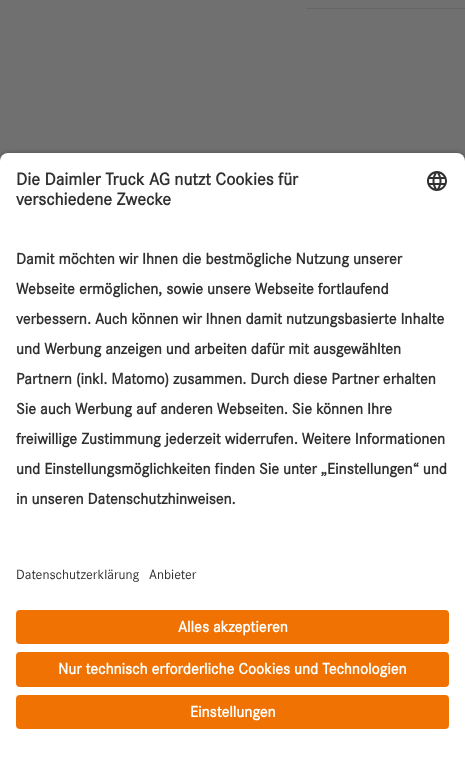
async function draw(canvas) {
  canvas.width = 465
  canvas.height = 757
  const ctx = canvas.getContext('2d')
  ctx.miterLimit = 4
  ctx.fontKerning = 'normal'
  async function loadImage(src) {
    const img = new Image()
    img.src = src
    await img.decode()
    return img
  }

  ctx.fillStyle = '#707070'
  ctx.fillRect(0, 0, 465, 757)
  ctx.fillStyle = '#666'
  ctx.fillRect(306, 8, 159, 1)
  ctx.fillStyle = '#000000cc'
  ctx.filter = 'blur(3.5px)'
  ctx.beginPath()
  ctx.roundRect(0, 156, 465, 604, 8)
  ctx.fill()
  ctx.filter = 'none'
  ctx.fillStyle = '#fff'
  ctx.beginPath()
  ctx.roundRect(0, 153, 465, 399, [8, 8, 0, 0])
  ctx.fill()
  ctx.font = 'bold 18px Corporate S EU'
  ctx.fillStyle = '#303030'
  ctx.fillText('Die Daimler Truck AG nutzt Cookies für', 16, 185)
  ctx.fillText('verschiedene Zwecke', 16, 205)
  ctx.drawImage(await loadImage('image0.png'), 427, 171, 20, 20)
  ctx.font = 'bold 16px Corporate S EU'
  ctx.fillText('Damit möchten wir Ihnen die bestmögliche Nutzung unserer', 16, 264)
  ctx.fillText('Webseite ermöglichen, sowie unsere Webseite fortlaufend', 16, 294)
  ctx.fillText('verbessern. Auch können wir Ihnen damit nutzungsbasierte Inhalte', 16, 324)
  ctx.fillText('und Werbung anzeigen und arbeiten dafür mit ausgewählten', 16, 354)
  ctx.fillText('Partnern (inkl. Matomo) zusammen. Durch diese Partner erhalten', 16, 384)
  ctx.fillText('Sie auch Werbung auf anderen Webseiten. Sie können Ihre', 16, 414)
  ctx.fillText('freiwillige Zustimmung jederzeit widerrufen. Weitere Informationen', 16, 444)
  ctx.fillText('und Einstellungsmöglichkeiten finden Sie unter „Einstellungen“ und', 16, 474)
  ctx.fillText('in unseren Datenschutzhinweisen.', 16, 504)
  ctx.fillStyle = '#fff'
  ctx.fillRect(0, 552, 465, 205)
  ctx.font = '14px Corporate S EU'
  ctx.fillStyle = '#303030'
  ctx.fillText('Datenschutzerklärung', 16, 579)
  ctx.fillText('Anbieter', 149, 579)
  ctx.fillStyle = '#ef7203'
  ctx.beginPath()
  ctx.roundRect(16, 610, 433, 34, 4)
  ctx.fill()
  ctx.font = 'bold 16px Corporate S EU'
  ctx.fillStyle = '#fff'
  ctx.fillText('Alles akzeptieren', 178, 632)
  ctx.fillStyle = '#ef7203'
  ctx.beginPath()
  ctx.roundRect(16, 652, 433, 35, 4)
  ctx.fill()
  ctx.fillStyle = '#fff'
  ctx.fillText('Nur technisch erforderliche Cookies und Technologien', 58, 674)
  ctx.fillStyle = '#ef7203'
  ctx.beginPath()
  ctx.roundRect(16, 695, 433, 34, 4)
  ctx.fill()
  ctx.fillStyle = '#fff'
  ctx.fillText('Einstellungen', 190, 717)
}

draw(document.querySelector('canvas'))
